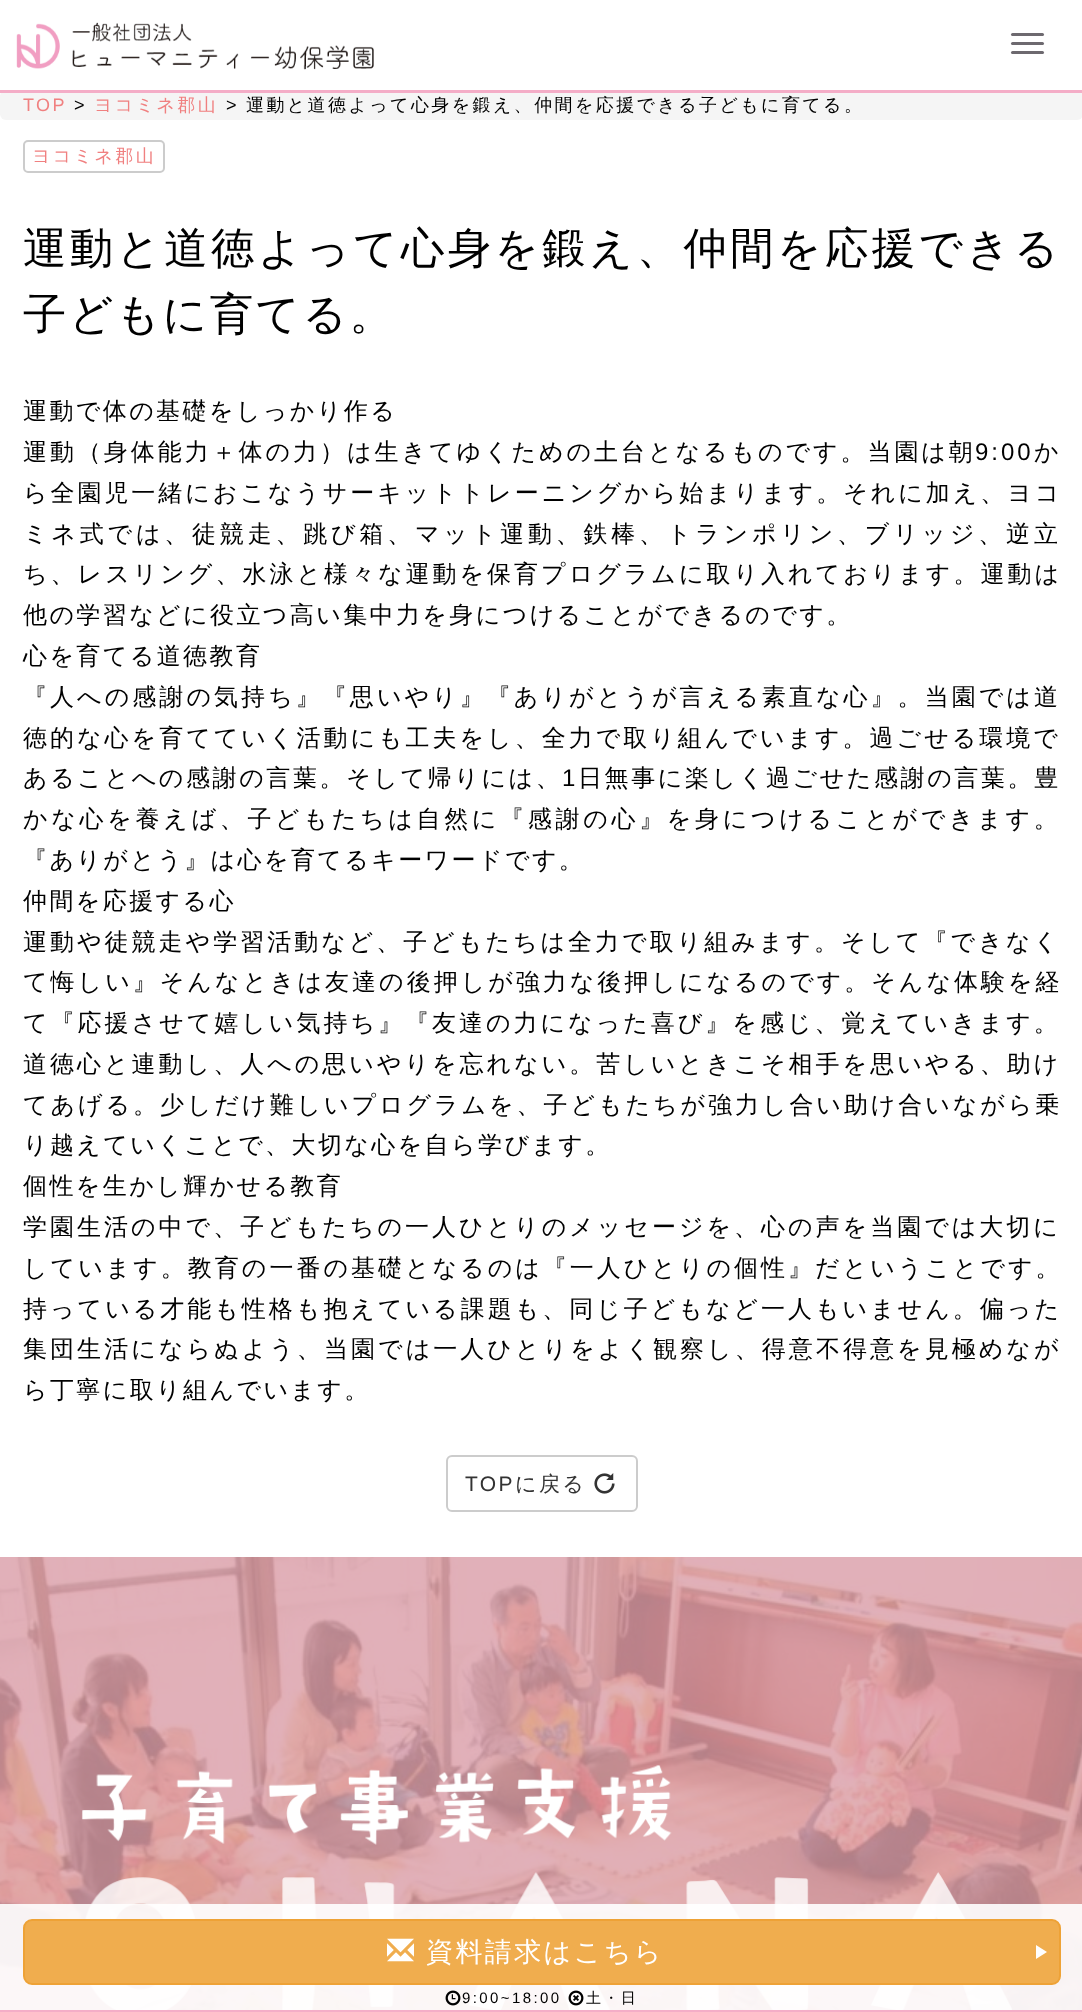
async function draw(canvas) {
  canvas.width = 1082
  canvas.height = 2012
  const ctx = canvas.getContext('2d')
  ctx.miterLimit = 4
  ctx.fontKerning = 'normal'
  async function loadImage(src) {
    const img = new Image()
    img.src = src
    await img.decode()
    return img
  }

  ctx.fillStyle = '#fff'
  ctx.fillRect(0, 0, 1082, 2012)
  ctx.fillStyle = '#f5f5f5'
  ctx.beginPath()
  ctx.roundRect(0, 90, 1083, 30, 6)
  ctx.fill()
  ctx.fillStyle = '#f4adc7'
  ctx.fillRect(0, 90, 1082, 3)
  ctx.drawImage(await loadImage('image0.png'), 16, 22, 358, 48)
  ctx.fillStyle = '#6d696f'
  ctx.beginPath()
  ctx.roundRect(1011, 33, 33, 3, 1.5)
  ctx.fill()
  ctx.beginPath()
  ctx.roundRect(1011, 42, 33, 3, 1.5)
  ctx.fill()
  ctx.beginPath()
  ctx.roundRect(1011, 51, 33, 3, 1.5)
  ctx.fill()
  ctx.letterSpacing = '2.4px'
  ctx.font = '18px Liberation Sans'
  ctx.fillStyle = '#f08080'
  ctx.fillText('TOP', 23, 111)
  ctx.fillStyle = '#000'
  ctx.fillText('>', 74, 111)
  ctx.font = '500 18px WenQuanYi Zen Hei'
  ctx.fillStyle = '#f08080'
  ctx.fillText('ヨコミネ郡山', 94, 111)
  ctx.font = '18px Liberation Sans'
  ctx.fillStyle = '#000'
  ctx.fillText('>', 226, 111)
  ctx.font = '500 18px WenQuanYi Zen Hei'
  ctx.fillText('運動と道徳よって心身を鍛え、仲間を応援できる子どもに育てる。', 246, 111)
  ctx.beginPath()
  ctx.roundRect(24, 141, 140, 31, 4)
  ctx.strokeStyle = '#ccc'
  ctx.lineWidth = 2
  ctx.stroke()
  ctx.fillStyle = '#f08080'
  ctx.fillText('ヨコミネ郡山', 32, 162)
  ctx.letterSpacing = '3.25px'
  ctx.font = '500 43.5px WenQuanYi Zen Hei'
  ctx.fillStyle = '#000'
  ctx.fillText('運動と道徳よって心身を鍛え、仲間を応援できる', 23, 263)
  ctx.letterSpacing = '2.4px'
  ctx.fillText('子どもに育てる。', 23, 329)
  ctx.font = '500 24px WenQuanYi Zen Hei'
  ctx.fillText('運動で体の基礎をしっかり作る', 23, 419)
  ctx.letterSpacing = '2.95px'
  ctx.fillText('運動（身体能力＋体の力）は生きてゆくための土台となるものです。当園は朝', 23, 460)
  ctx.font = '24px Liberation Sans'
  ctx.fillText('9:00', 975, 460)
  ctx.font = '500 24px WenQuanYi Zen Hei'
  ctx.fillText('か', 1034, 460)
  ctx.fillText('ら全園児一緒におこなうサーキットトレーニングから始まります。それに加え、ヨコ', 23, 501)
  ctx.letterSpacing = '3.8px'
  ctx.fillText('ミネ式では、徒競走、跳び箱、マット運動、鉄棒、トランポリン、ブリッジ、逆立', 23, 542)
  ctx.letterSpacing = '3px'
  ctx.fillText('ち、レスリング、水泳と様々な運動を保育プログラムに取り入れております。運動は', 23, 582)
  ctx.letterSpacing = '2.4px'
  ctx.fillText('他の学習などに役立つ高い集中力を身につけることができるのです。', 23, 623)
  ctx.fillText('心を育てる道徳教育', 23, 664)
  ctx.letterSpacing = '3.05px'
  ctx.fillText('『人への感謝の気持ち』『思いやり』『ありがとうが言える素直な心』。当園では道', 23, 705)
  ctx.letterSpacing = '3px'
  ctx.fillText('徳的な心を育てていく活動にも工夫をし、全力で取り組んでいます。過ごせる環境で', 23, 746)
  ctx.letterSpacing = '2.6px'
  ctx.fillText('あることへの感謝の言葉。そして帰りには、', 23, 786)
  ctx.font = '24px Liberation Sans'
  ctx.fillText('1', 562, 786)
  ctx.font = '500 24px WenQuanYi Zen Hei'
  ctx.fillText('日無事に楽しく過ごせた感謝の言葉。豊', 578, 786)
  ctx.letterSpacing = '3.7px'
  ctx.fillText('かな心を養えば、子どもたちは自然に『感謝の心』を身につけることができます。', 23, 827)
  ctx.letterSpacing = '2.4px'
  ctx.fillText('『ありがとう』は心を育てるキーワードです。', 23, 868)
  ctx.fillText('仲間を応援する心', 23, 909)
  ctx.letterSpacing = '3px'
  ctx.fillText('運動や徒競走や学習活動など、子どもたちは全力で取り組みます。そして『できなく', 23, 950)
  ctx.fillText('て悔しい』そんなときは友達の後押しが強力な後押しになるのです。そんな体験を経', 23, 990)
  ctx.fillText('て『応援させて嬉しい気持ち』『友達の力になった喜び』を感じ、覚えていきます。', 23, 1031)
  ctx.fillText('道徳心と連動し、人への思いやりを忘れない。苦しいときこそ相手を思いやる、助け', 23, 1072)
  ctx.letterSpacing = '2.95px'
  ctx.fillText('てあげる。少しだけ難しいプログラムを、子どもたちが強力し合い助け合いながら乗', 23, 1113)
  ctx.letterSpacing = '2.4px'
  ctx.fillText('り越えていくことで、大切な心を自ら学びます。', 23, 1153)
  ctx.fillText('個性を生かし輝かせる教育', 23, 1194)
  ctx.letterSpacing = '3px'
  ctx.fillText('学園生活の中で、子どもたちの一人ひとりのメッセージを、心の声を当園では大切に', 23, 1235)
  ctx.fillText('しています。教育の一番の基礎となるのは『一人ひとりの個性』だということです。', 23, 1276)
  ctx.fillText('持っている才能も性格も抱えている課題も、同じ子どもなど一人もいません。偏った', 23, 1317)
  ctx.letterSpacing = '3.05px'
  ctx.fillText('集団生活にならぬよう、当園では一人ひとりをよく観察し、得意不得意を見極めなが', 23, 1357)
  ctx.letterSpacing = '2.4px'
  ctx.fillText('ら丁寧に取り組んでいます。', 23, 1398)
  ctx.beginPath()
  ctx.roundRect(447, 1456, 190, 55, 5)
  ctx.stroke()
  ctx.font = '21px Liberation Sans'
  ctx.fillStyle = '#333'
  ctx.fillText('TOP', 465, 1491)
  ctx.font = '500 21px WenQuanYi Zen Hei'
  ctx.fillText('に戻る', 515, 1491)
  ctx.drawImage(await loadImage('image1.png'), 594, 1473, 21, 21)
  ctx.drawImage(await loadImage('image2.png'), 0, 1557, 1082, 453)
  ctx.drawImage(await loadImage('image3.png'), 81, 1765, 931, 245)
  ctx.fillStyle = '#ffffffe6'
  ctx.fillRect(0, 1904, 1082, 106)
  ctx.fillStyle = '#f4adc7'
  ctx.fillRect(0, 2010, 1082, 2)
  ctx.fillStyle = '#f0ad4e'
  ctx.beginPath()
  ctx.roundRect(24, 1920, 1036, 64, 8)
  ctx.fill()
  ctx.strokeStyle = '#eea236'
  ctx.stroke()
  ctx.drawImage(await loadImage('image4.png'), 387, 1938, 27, 24)
  ctx.font = '500 27px WenQuanYi Zen Hei'
  ctx.fillStyle = '#fff'
  ctx.fillText('資料請求はこちら', 426, 1961)
  ctx.beginPath()
  ctx.moveTo(1047, 1952)
  ctx.lineTo(1036, 1945)
  ctx.lineTo(1036, 1959)
  ctx.closePath()
  ctx.fill()
  ctx.drawImage(await loadImage('image5.png'), 445, 1990, 16, 16)
  ctx.font = '15px Liberation Sans'
  ctx.fillStyle = '#000'
  ctx.fillText('9:00~18:00', 462, 2003)
  ctx.drawImage(await loadImage('image6.png'), 568, 1990, 16, 16)
  ctx.font = '500 15px WenQuanYi Zen Hei'
  ctx.fillText('土・日', 586, 2003)
}

draw(document.querySelector('canvas'))
